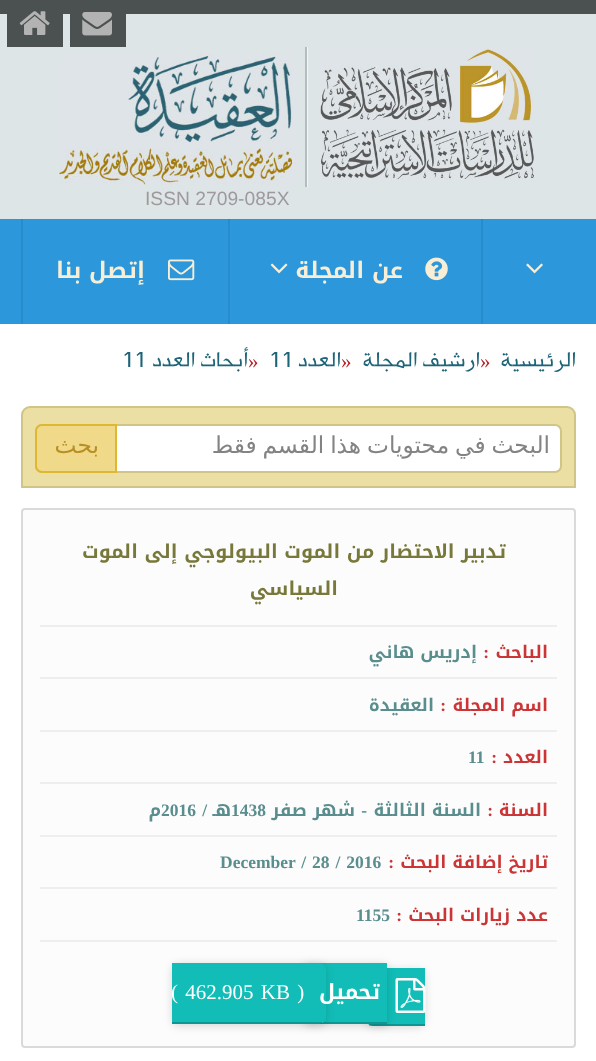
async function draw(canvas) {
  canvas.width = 596
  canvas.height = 1061
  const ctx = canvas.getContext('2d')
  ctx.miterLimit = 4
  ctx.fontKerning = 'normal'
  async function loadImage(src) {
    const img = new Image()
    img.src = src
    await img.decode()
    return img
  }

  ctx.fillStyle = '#fff'
  ctx.fillRect(0, 0, 596, 1061)
  ctx.fillStyle = '#dee5e7'
  ctx.fillRect(0, 14, 596, 205)
  ctx.fillStyle = '#4b5051'
  ctx.fillRect(0, 0, 596, 14)
  ctx.fillRect(70, 14, 56, 33)
  ctx.drawImage(await loadImage('image0.png'), 82, 12, 30, 24)
  ctx.fillRect(7, 14, 56, 33)
  ctx.drawImage(await loadImage('image1.png'), 19, 11, 31, 24)
  ctx.drawImage(await loadImage('image2.png'), 320, 47, 214, 133)
  ctx.fillStyle = '#f3f5f7'
  ctx.fillRect(307, 47, 1, 140)
  ctx.fillStyle = '#b6bbbd'
  ctx.fillRect(305, 47, 2, 140)
  ctx.drawImage(await loadImage('image3.png'), 59, 53, 238, 132)
  ctx.font = '19.25px Liberation Sans'
  ctx.fillStyle = '#9e9a9c'
  ctx.fillText('ISSN 2709-085X', 145, 205)
  ctx.fillStyle = '#2d97dc'
  ctx.fillRect(0, 219, 596, 105)
  ctx.fillStyle = '#278cce'
  ctx.fillRect(481, 219, 2, 105)
  ctx.drawImage(await loadImage('image4.png'), 526, 263, 17, 11)
  ctx.fillRect(228, 219, 2, 105)
  ctx.drawImage(await loadImage('image5.png'), 425, 257, 23, 24)
  ctx.direction = 'rtl'
  ctx.font = 'bold 22.75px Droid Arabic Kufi'
  ctx.fillStyle = '#f8eed6'
  ctx.fillText('عن المجلة', 403, 278)
  ctx.drawImage(await loadImage('image6.png'), 270, 263, 18, 11)
  ctx.fillStyle = '#278cce'
  ctx.fillRect(21, 219, 2, 105)
  ctx.drawImage(await loadImage('image7.png'), 168, 259, 27, 22)
  ctx.fillStyle = '#f8eed6'
  ctx.fillText('إتصل بنا', 145, 278)
  ctx.font = '300 24.5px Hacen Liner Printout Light'
  ctx.fillStyle = '#1d6478'
  ctx.fillText('الرئيسية', 576, 368)
  ctx.direction = 'ltr'
  ctx.font = '21px Liberation Serif'
  ctx.fillStyle = '#b52025'
  ctx.fillText('»', 480, 368)
  ctx.direction = 'rtl'
  ctx.font = '300 24.5px Hacen Liner Printout Light'
  ctx.fillStyle = '#1d6478'
  ctx.fillText('ارشيف المجلة', 480, 368)
  ctx.direction = 'ltr'
  ctx.font = '21px Liberation Serif'
  ctx.fillStyle = '#b52025'
  ctx.fillText('»', 341, 368)
  ctx.direction = 'rtl'
  ctx.font = '300 24.5px Hacen Liner Printout Light'
  ctx.fillStyle = '#1d6478'
  ctx.fillText('العدد', 341, 368)
  ctx.direction = 'ltr'
  ctx.fillText('11', 269, 368)
  ctx.font = '21px Liberation Serif'
  ctx.fillStyle = '#b52025'
  ctx.fillText('»', 248, 368)
  ctx.direction = 'rtl'
  ctx.font = '300 24.5px Hacen Liner Printout Light'
  ctx.fillStyle = '#1d6478'
  ctx.fillText('أبحاث العدد', 248, 368)
  ctx.direction = 'ltr'
  ctx.fillText('11', 122, 368)
  ctx.fillStyle = '#ecdfa4'
  ctx.beginPath()
  ctx.roundRect(22, 407, 553, 80, [8, 8, 0, 0])
  ctx.fill()
  ctx.strokeStyle = '#d1c487'
  ctx.lineWidth = 2
  ctx.stroke()
  ctx.fillStyle = '#fff'
  ctx.beginPath()
  ctx.roundRect(36, 425, 525, 47, 6)
  ctx.fill()
  ctx.stroke()
  ctx.save()
  ctx.beginPath()
  ctx.rect(47, 432, 503, 28)
  ctx.clip()
  ctx.wordSpacing = '-1.5px'
  ctx.direction = 'rtl'
  ctx.font = '23.3px DejaVu Sans'
  ctx.fillStyle = '#838383'
  ctx.fillText('البحث في محتويات هذا القسم فقط', 550, 453)
  ctx.restore()
  ctx.fillStyle = '#f1d98a'
  ctx.beginPath()
  ctx.roundRect(36, 425, 80, 47, [6, 0, 0, 6])
  ctx.fill()
  ctx.strokeStyle = '#dfb831'
  ctx.stroke()
  ctx.direction = 'rtl'
  ctx.font = '23.3px DejaVu Sans'
  ctx.fillStyle = '#b78f26'
  ctx.fillText('بحث', 99, 453)
  ctx.fillStyle = '#fcfcfd'
  ctx.beginPath()
  ctx.roundRect(22, 509, 553, 538, 3)
  ctx.fill()
  ctx.strokeStyle = '#dbd9d9'
  ctx.stroke()
  ctx.font = 'bold 19.25px Droid Arabic Kufi'
  ctx.fillStyle = '#78783b'
  ctx.fillText('تدبير الاحتضار من الموت البيولوجي إلى الموت', 506, 558)
  ctx.fillText('السياسي', 338, 595)
  ctx.fillStyle = '#eee'
  ctx.fillRect(40, 625, 517, 2)
  ctx.font = 'bold 17.5px Droid Arabic Kufi'
  ctx.fillStyle = '#cb3535'
  ctx.fillText('الباحث', 548, 658)
  ctx.font = 'bold 17.5px Liberation Serif'
  ctx.fillText(':', 489, 658)
  ctx.font = 'bold 17.5px Droid Arabic Kufi'
  ctx.fillStyle = '#5a8d8d'
  ctx.fillText('إدريس هاني', 477, 658)
  ctx.fillStyle = '#eee'
  ctx.fillRect(40, 677, 517, 2)
  ctx.fillStyle = '#cb3535'
  ctx.fillText('اسم المجلة', 548, 711)
  ctx.font = 'bold 17.5px Liberation Serif'
  ctx.fillText(':', 446, 711)
  ctx.font = 'bold 17.5px Droid Arabic Kufi'
  ctx.fillStyle = '#5a8d8d'
  ctx.fillText('العقيدة', 434, 711)
  ctx.fillStyle = '#eee'
  ctx.fillRect(40, 730, 517, 2)
  ctx.fillStyle = '#cb3535'
  ctx.fillText('العدد', 548, 763)
  ctx.font = 'bold 17.5px Liberation Serif'
  ctx.fillText(':', 497, 763)
  ctx.direction = 'ltr'
  ctx.fillStyle = '#5a8d8d'
  ctx.fillText('11', 468, 763)
  ctx.fillStyle = '#eee'
  ctx.fillRect(40, 782, 517, 2)
  ctx.direction = 'rtl'
  ctx.font = 'bold 17.5px Droid Arabic Kufi'
  ctx.fillStyle = '#cb3535'
  ctx.fillText('السنة', 548, 816)
  ctx.font = 'bold 17.5px Liberation Serif'
  ctx.fillText(':', 493, 816)
  ctx.font = 'bold 17.5px Droid Arabic Kufi'
  ctx.fillStyle = '#5a8d8d'
  ctx.fillText('السنة الثالثة', 481, 816)
  ctx.font = 'bold 17.5px Liberation Serif'
  ctx.fillText('-', 367, 816)
  ctx.font = 'bold 17.5px Droid Arabic Kufi'
  ctx.fillText('شهر صفر', 355, 816)
  ctx.direction = 'ltr'
  ctx.font = 'bold 17.5px Liberation Serif'
  ctx.fillText('1438', 231, 816)
  ctx.direction = 'rtl'
  ctx.font = 'bold 17.5px Droid Arabic Kufi'
  ctx.fillText('هـ', 231, 816)
  ctx.font = 'bold 17.5px Liberation Serif'
  ctx.fillText('/', 207, 816)
  ctx.direction = 'ltr'
  ctx.fillText('2016', 161, 816)
  ctx.direction = 'rtl'
  ctx.font = 'bold 17.5px Droid Arabic Kufi'
  ctx.fillText('م', 161, 816)
  ctx.fillStyle = '#eee'
  ctx.fillRect(40, 835, 517, 2)
  ctx.fillStyle = '#cb3535'
  ctx.fillText('تاريخ إضافة البحث', 548, 868)
  ctx.font = 'bold 17.5px Liberation Serif'
  ctx.fillText(':', 394, 868)
  ctx.wordSpacing = '1.5px'
  ctx.direction = 'ltr'
  ctx.fillStyle = '#5a8d8d'
  ctx.fillText('December / 28 / 2016', 220, 868)
  ctx.fillStyle = '#eee'
  ctx.fillRect(40, 887, 517, 2)
  ctx.wordSpacing = '0px'
  ctx.direction = 'rtl'
  ctx.font = 'bold 17.5px Droid Arabic Kufi'
  ctx.fillStyle = '#cb3535'
  ctx.fillText('عدد زيارات البحث', 548, 921)
  ctx.font = 'bold 17.5px Liberation Serif'
  ctx.fillText(':', 402, 921)
  ctx.direction = 'ltr'
  ctx.fillStyle = '#5a8d8d'
  ctx.fillText('1155', 356, 921)
  ctx.fillStyle = '#eee'
  ctx.fillRect(40, 940, 517, 2)
  ctx.fillStyle = '#00000026'
  ctx.filter = 'blur(4.5px)'
  ctx.beginPath()
  ctx.roundRect(366, 970, 59, 57, 7)
  ctx.fill()
  ctx.filter = 'none'
  ctx.fillStyle = '#12bdb7'
  ctx.beginPath()
  ctx.roundRect(366, 968, 59, 58, [7, 0, 0, 7])
  ctx.fill()
  ctx.fillStyle = '#00000033'
  ctx.fillRect(369, 1024, 56, 2)
  ctx.fillStyle = '#00000026'
  ctx.filter = 'blur(4.5px)'
  ctx.beginPath()
  ctx.rect(305, 964, 82, 62)
  ctx.fill()
  ctx.filter = 'none'
  ctx.fillStyle = '#12bdb7'
  ctx.fillRect(319, 963, 68, 59)
  ctx.fillStyle = '#0e9792'
  ctx.fillRect(319, 1022, 68, 2)
  ctx.fillStyle = '#00000026'
  ctx.filter = 'blur(4.5px)'
  ctx.beginPath()
  ctx.roundRect(172, 964, 154, 62, 7)
  ctx.fill()
  ctx.filter = 'none'
  ctx.fillStyle = '#12bdb7'
  ctx.beginPath()
  ctx.roundRect(172, 963, 154, 61, [0, 7, 7, 0])
  ctx.fill()
  ctx.fillStyle = '#00000033'
  ctx.fillRect(172, 1022, 150, 2)
  ctx.drawImage(await loadImage('image8.png'), 395, 978, 31, 35)
  ctx.direction = 'rtl'
  ctx.font = 'bold 21px Droid Arabic Kufi'
  ctx.fillStyle = '#fff'
  ctx.fillText('تحميل', 380, 999)
  ctx.wordSpacing = '2px'
  ctx.direction = 'ltr'
  ctx.font = '21px Liberation Serif'
  ctx.fillText('( 462.905 KB )', 171, 999)
}

draw(document.querySelector('canvas'))
